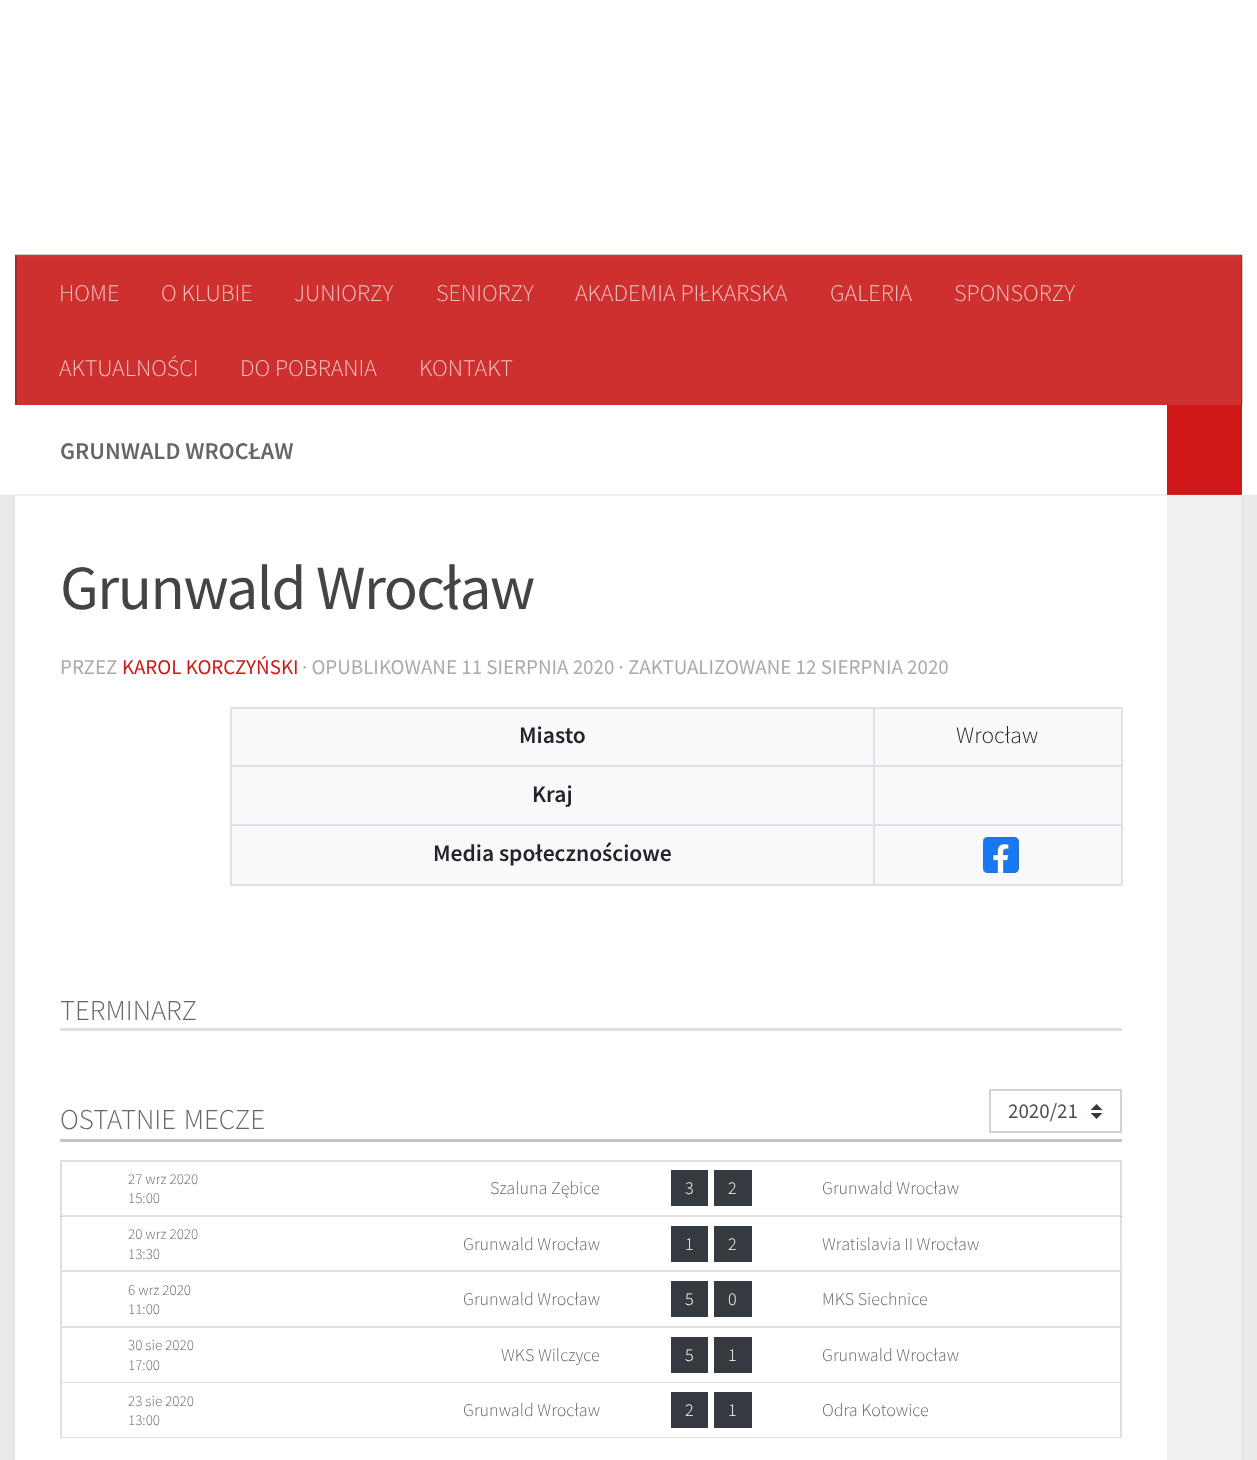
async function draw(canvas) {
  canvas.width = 1257
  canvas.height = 1460
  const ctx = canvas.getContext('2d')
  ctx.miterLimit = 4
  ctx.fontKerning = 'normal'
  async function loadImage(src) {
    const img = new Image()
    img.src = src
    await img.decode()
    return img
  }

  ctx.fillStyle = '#eaeaea'
  ctx.fillRect(0, 0, 1257, 1460)
  ctx.fillStyle = '#0000001a'
  ctx.filter = 'blur(1px)'
  ctx.beginPath()
  ctx.rect(15, 407, 1227, 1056)
  ctx.fill()
  ctx.filter = 'none'
  ctx.fillStyle = '#fff'
  ctx.fillRect(0, 0, 1257, 495)
  ctx.fillStyle = '#ccc'
  ctx.fillRect(1242, 255, 1, 150)
  ctx.fillRect(15, 254, 1227, 1)
  ctx.fillStyle = '#ce2f2f'
  ctx.fillRect(17, 257, 1224, 148)
  ctx.fillStyle = '#d03939'
  ctx.fillRect(15, 255, 1227, 2)
  ctx.fillStyle = '#a52626'
  ctx.fillRect(1241, 255, 1, 150)
  ctx.fillStyle = '#aa3131'
  ctx.fillRect(1241, 255, 1, 2)
  ctx.fillStyle = '#a52626'
  ctx.fillRect(15, 255, 2, 150)
  ctx.fillStyle = '#aa3131'
  ctx.fillRect(15, 255, 2, 2)
  ctx.font = '300 24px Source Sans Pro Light'
  ctx.fillStyle = '#f0c1c1'
  ctx.fillText('HOME', 59, 301)
  ctx.fillText('O KLUBIE', 161, 301)
  ctx.fillText('JUNIORZY', 294, 301)
  ctx.fillText('SENIORZY', 436, 301)
  ctx.fillText('AKADEMIA PIŁKARSKA', 575, 301)
  ctx.fillText('GALERIA', 830, 301)
  ctx.fillText('SPONSORZY', 954, 301)
  ctx.fillText('AKTUALNOŚCI', 59, 376)
  ctx.fillText('DO POBRANIA', 240, 376)
  ctx.fillText('KONTAKT', 419, 376)
  ctx.fillStyle = '#fff'
  ctx.fillRect(15, 496, 1152, 964)
  ctx.fillStyle = '#eee'
  ctx.fillRect(15, 494, 1152, 2)
  ctx.font = '600 24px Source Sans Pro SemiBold'
  ctx.fillStyle = '#666'
  ctx.fillText('GRUNWALD WROCŁAW', 60, 459)
  ctx.letterSpacing = '-1.5px'
  ctx.font = '63px Source Sans Pro'
  ctx.fillStyle = '#444'
  ctx.fillText('Grunwald Wrocław', 60, 609)
  ctx.letterSpacing = '0px'
  ctx.font = '21px Source Sans Pro'
  ctx.fillStyle = '#aaa'
  ctx.fillText('PRZEZ', 60, 674)
  ctx.fillStyle = '#d11717'
  ctx.fillText('KAROL KORCZYŃSKI', 122, 674)
  ctx.fillStyle = '#aaa'
  ctx.fillText('· OPUBLIKOWANE 11 SIERPNIA 2020 · ZAKTUALIZOWANE 12 SIERPNIA 2020', 302, 674)
  ctx.fillStyle = '#f8f9fa'
  ctx.fillRect(232, 709, 889, 175)
  ctx.fillStyle = '#dee2e6'
  ctx.fillRect(230, 707, 892, 2)
  ctx.fillRect(1121, 707, 2, 178)
  ctx.fillRect(230, 884, 892, 2)
  ctx.fillRect(230, 707, 2, 178)
  ctx.font = '600 23.6px Source Sans Pro SemiBold'
  ctx.fillStyle = '#212529'
  ctx.fillText('Miasto', 519, 743)
  ctx.fillStyle = '#dee2e6'
  ctx.fillRect(873, 765, 249, 2)
  ctx.fillRect(873, 824, 249, 2)
  ctx.fillRect(873, 824, 2, 61)
  ctx.fillRect(230, 824, 645, 2)
  ctx.fillRect(873, 765, 2, 60)
  ctx.fillRect(230, 765, 645, 2)
  ctx.fillRect(873, 707, 2, 60)
  ctx.font = '300 23.6px Source Sans Pro Light'
  ctx.fillStyle = '#212529'
  ctx.fillText('Wrocław', 956, 743)
  ctx.font = '600 23.6px Source Sans Pro SemiBold'
  ctx.fillText('Kraj', 532, 802)
  ctx.fillText('Media społecznościowe', 433, 861)
  ctx.drawImage(await loadImage('image0.png'), 983, 837, 36, 36)
  ctx.fillStyle = '#dee2e6'
  ctx.fillRect(60, 1028, 1062, 3)
  ctx.font = '300 28.75px Source Sans Pro Light'
  ctx.fillStyle = '#666'
  ctx.fillText('TERMINARZ', 60, 1020)
  ctx.fillStyle = '#c5c5c5'
  ctx.fillRect(60, 1139, 1062, 3)
  ctx.wordSpacing = '2px'
  ctx.fillStyle = '#666'
  ctx.fillText('OSTATNIE MECZE', 60, 1129)
  ctx.drawImage(await loadImage('image1.png'), 1091, 1104, 12, 15)
  ctx.strokeStyle = '#ced4da'
  ctx.lineWidth = 2
  ctx.strokeRect(990, 1090, 131, 42)
  ctx.wordSpacing = '0px'
  ctx.font = '21px Source Sans Pro'
  ctx.fillStyle = '#495057'
  ctx.fillText('2020/21', 1008, 1118)
  ctx.strokeStyle = '#dfdfdf'
  ctx.strokeRect(61, 1161, 1060, 55)
  ctx.font = '300 15px Source Sans Pro Light'
  ctx.fillStyle = '#666'
  ctx.fillText('27 wrz 2020', 128, 1184)
  ctx.fillText('15:00', 128, 1203)
  ctx.font = '300 18px Source Sans Pro Light'
  ctx.fillText('Szaluna Zębice', 490, 1194)
  ctx.fillStyle = '#343a40'
  ctx.fillRect(671, 1170, 37, 36)
  ctx.fillStyle = '#fff'
  ctx.fillText('3', 685, 1194)
  ctx.fillStyle = '#343a40'
  ctx.fillRect(714, 1170, 38, 36)
  ctx.fillStyle = '#fff'
  ctx.fillText('2', 728, 1194)
  ctx.fillStyle = '#666'
  ctx.fillText('Grunwald Wrocław', 822, 1194)
  ctx.fillStyle = '#0000001f'
  ctx.beginPath()
  ctx.moveTo(1122, 1216)
  ctx.lineTo(1122, 1272)
  ctx.lineTo(1120, 1270)
  ctx.lineTo(1120, 1216)
  ctx.closePath()
  ctx.fill()
  ctx.beginPath()
  ctx.moveTo(1122, 1272)
  ctx.lineTo(60, 1272)
  ctx.lineTo(62, 1270)
  ctx.lineTo(1120, 1270)
  ctx.closePath()
  ctx.fill()
  ctx.beginPath()
  ctx.moveTo(60, 1272)
  ctx.lineTo(60, 1216)
  ctx.lineTo(62, 1216)
  ctx.lineTo(62, 1270)
  ctx.closePath()
  ctx.fill()
  ctx.font = '300 15px Source Sans Pro Light'
  ctx.fillStyle = '#666'
  ctx.fillText('20 wrz 2020', 128, 1239)
  ctx.fillText('13:30', 128, 1259)
  ctx.font = '300 18px Source Sans Pro Light'
  ctx.fillText('Grunwald Wrocław', 463, 1250)
  ctx.fillStyle = '#343a40'
  ctx.fillRect(671, 1226, 37, 36)
  ctx.fillStyle = '#fff'
  ctx.fillText('1', 685, 1250)
  ctx.fillStyle = '#343a40'
  ctx.fillRect(714, 1226, 38, 36)
  ctx.fillStyle = '#fff'
  ctx.fillText('2', 728, 1250)
  ctx.fillStyle = '#666'
  ctx.fillText('Wratislavia II Wrocław', 822, 1250)
  ctx.fillStyle = '#dfdfdf'
  ctx.beginPath()
  ctx.moveTo(1122, 1272)
  ctx.lineTo(1122, 1328)
  ctx.lineTo(1120, 1326)
  ctx.lineTo(1120, 1272)
  ctx.closePath()
  ctx.fill()
  ctx.fillStyle = '#0000001f'
  ctx.beginPath()
  ctx.moveTo(1122, 1328)
  ctx.lineTo(60, 1328)
  ctx.lineTo(62, 1326)
  ctx.lineTo(1120, 1326)
  ctx.closePath()
  ctx.fill()
  ctx.beginPath()
  ctx.moveTo(60, 1328)
  ctx.lineTo(60, 1272)
  ctx.lineTo(62, 1272)
  ctx.lineTo(62, 1326)
  ctx.closePath()
  ctx.fill()
  ctx.font = '300 15px Source Sans Pro Light'
  ctx.fillStyle = '#666'
  ctx.fillText('6 wrz 2020', 128, 1295)
  ctx.fillText('11:00', 128, 1314)
  ctx.font = '300 18px Source Sans Pro Light'
  ctx.fillText('Grunwald Wrocław', 463, 1305)
  ctx.fillStyle = '#343a40'
  ctx.fillRect(671, 1281, 37, 36)
  ctx.fillStyle = '#fff'
  ctx.fillText('5', 685, 1305)
  ctx.fillStyle = '#343a40'
  ctx.fillRect(714, 1281, 38, 36)
  ctx.fillStyle = '#fff'
  ctx.fillText('0', 728, 1305)
  ctx.fillStyle = '#666'
  ctx.fillText('MKS Siechnice', 822, 1305)
  ctx.fillStyle = '#dfdfdf'
  ctx.beginPath()
  ctx.moveTo(1122, 1328)
  ctx.lineTo(1122, 1383)
  ctx.lineTo(1120, 1382)
  ctx.lineTo(1120, 1328)
  ctx.closePath()
  ctx.fill()
  ctx.fillStyle = '#0000001f'
  ctx.beginPath()
  ctx.moveTo(1122, 1383)
  ctx.lineTo(60, 1383)
  ctx.lineTo(62, 1382)
  ctx.lineTo(1120, 1382)
  ctx.closePath()
  ctx.fill()
  ctx.beginPath()
  ctx.moveTo(60, 1383)
  ctx.lineTo(60, 1328)
  ctx.lineTo(62, 1328)
  ctx.lineTo(62, 1382)
  ctx.closePath()
  ctx.fill()
  ctx.font = '300 15px Source Sans Pro Light'
  ctx.fillStyle = '#666'
  ctx.fillText('30 sie 2020', 128, 1350)
  ctx.fillText('17:00', 128, 1370)
  ctx.font = '300 18px Source Sans Pro Light'
  ctx.fillText('WKS Wilczyce', 501, 1361)
  ctx.fillStyle = '#343a40'
  ctx.fillRect(671, 1337, 37, 36)
  ctx.fillStyle = '#fff'
  ctx.fillText('5', 685, 1361)
  ctx.fillStyle = '#343a40'
  ctx.fillRect(714, 1337, 38, 36)
  ctx.fillStyle = '#fff'
  ctx.fillText('1', 728, 1361)
  ctx.fillStyle = '#666'
  ctx.fillText('Grunwald Wrocław', 822, 1361)
  ctx.fillStyle = '#dfdfdf'
  ctx.beginPath()
  ctx.moveTo(1122, 1383)
  ctx.lineTo(1122, 1438)
  ctx.lineTo(1120, 1437)
  ctx.lineTo(1120, 1383)
  ctx.closePath()
  ctx.fill()
  ctx.fillStyle = '#0000001f'
  ctx.beginPath()
  ctx.moveTo(1122, 1438)
  ctx.lineTo(60, 1438)
  ctx.lineTo(62, 1437)
  ctx.lineTo(1120, 1437)
  ctx.closePath()
  ctx.fill()
  ctx.beginPath()
  ctx.moveTo(60, 1438)
  ctx.lineTo(60, 1383)
  ctx.lineTo(62, 1383)
  ctx.lineTo(62, 1437)
  ctx.closePath()
  ctx.fill()
  ctx.font = '300 15px Source Sans Pro Light'
  ctx.fillStyle = '#666'
  ctx.fillText('23 sie 2020', 128, 1406)
  ctx.fillText('13:00', 128, 1425)
  ctx.font = '300 18px Source Sans Pro Light'
  ctx.fillText('Grunwald Wrocław', 463, 1416)
  ctx.fillStyle = '#343a40'
  ctx.fillRect(671, 1392, 37, 36)
  ctx.fillStyle = '#fff'
  ctx.fillText('2', 685, 1416)
  ctx.fillStyle = '#343a40'
  ctx.fillRect(714, 1392, 38, 36)
  ctx.fillStyle = '#fff'
  ctx.fillText('1', 728, 1416)
  ctx.fillStyle = '#666'
  ctx.fillText('Odra Kotowice', 822, 1416)
  ctx.fillStyle = '#d11717'
  ctx.fillRect(1167, 405, 75, 89)
  ctx.fillStyle = '#d62e2e'
  ctx.fillRect(1167, 494, 75, 1)
  ctx.fillStyle = '#f0f0f0'
  ctx.fillRect(1167, 496, 75, 964)
  ctx.fillStyle = '#f2f2f2'
  ctx.fillRect(1167, 495, 75, 1)
}

draw(document.querySelector('canvas'))
